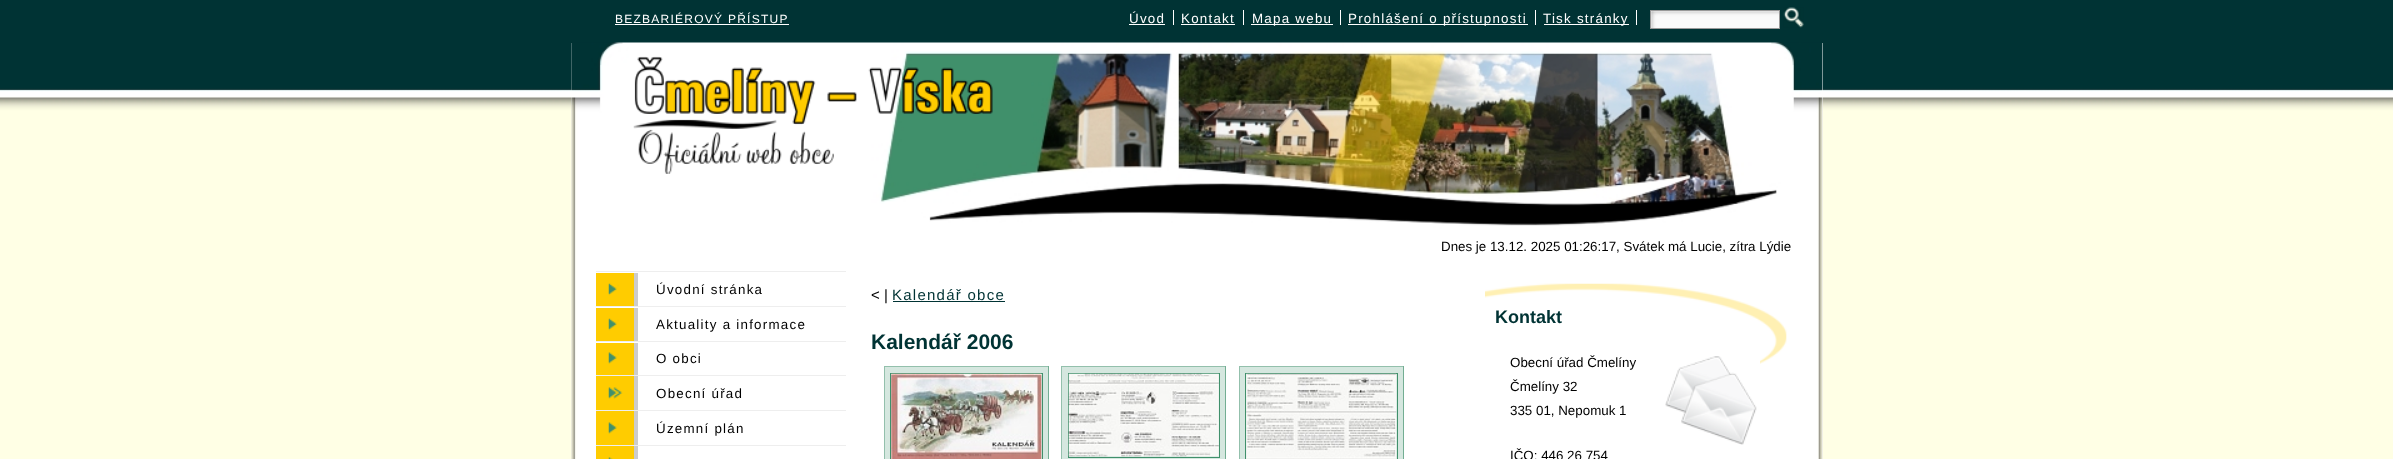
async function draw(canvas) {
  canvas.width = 2393
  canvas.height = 459
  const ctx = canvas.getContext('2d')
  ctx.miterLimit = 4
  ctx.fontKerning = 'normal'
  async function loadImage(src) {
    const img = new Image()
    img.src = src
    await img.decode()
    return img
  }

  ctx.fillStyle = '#fff'
  ctx.fillRect(0, 0, 2393, 459)
  ctx.drawImage(await loadImage('image0.png'), 0, 0, 2393, 459)
  ctx.fillRect(571, 43, 1252, 416)
  ctx.drawImage(await loadImage('image1.png'), 571, 230, 1252, 229)
  ctx.letterSpacing = '1.25px'
  ctx.font = '12px Liberation Sans'
  ctx.fillText('BEZBARIÉROVÝ PŘÍSTUP', 615, 23)
  ctx.fillRect(615, 24, 174, 1)
  ctx.font = '13.35px Liberation Sans'
  ctx.fillText('Úvod', 1129, 23)
  ctx.fillRect(1173, 10, 1, 15)
  ctx.fillRect(1129, 24, 36, 1)
  ctx.fillText('Kontakt', 1181, 23)
  ctx.fillRect(1243, 10, 1, 15)
  ctx.fillRect(1181, 24, 54, 1)
  ctx.fillRect(1251, 24, 82, 1)
  ctx.fillText('Mapa webu', 1252, 23)
  ctx.fillRect(1340, 10, 1, 15)
  ctx.fillRect(1348, 24, 180, 1)
  ctx.fillText('Prohlášení o přístupnosti', 1348, 23)
  ctx.fillRect(1535, 10, 1, 15)
  ctx.fillRect(1544, 24, 85, 1)
  ctx.fillText('Tisk stránky', 1543, 23)
  ctx.fillRect(1636, 10, 1, 15)
  ctx.fillRect(1651, 11, 128, 17)
  ctx.drawImage(await loadImage('image2.png'), 1651, 11, 128, 17)
  ctx.strokeStyle = '#999'
  ctx.strokeRect(1650.5, 10.5, 129, 18)
  ctx.drawImage(await loadImage('image3.png'), 1783, 7, 21, 21)
  ctx.drawImage(await loadImage('image4.png'), 571, 42, 1252, 188)
  ctx.drawImage(await loadImage('image5.png'), 633, 56, 360, 118)
  ctx.letterSpacing = '0px'
  ctx.fillStyle = '#000'
  ctx.fillText('Dnes je 13.12. 2025 01:26:17, Svátek má Lucie, zítra Lýdie', 1441, 251)
  ctx.fillStyle = '#eee'
  ctx.fillRect(596, 271, 250, 1)
  ctx.fillRect(596, 306, 250, 1)
  ctx.fillStyle = '#fc0'
  ctx.fillRect(596, 273, 38, 33)
  ctx.drawImage(await loadImage('image6.png'), 608, 283, 11, 13)
  ctx.fillStyle = '#ccc'
  ctx.fillRect(634, 273, 4, 33)
  ctx.letterSpacing = '1.25px'
  ctx.fillStyle = '#000'
  ctx.fillText('Úvodní stránka', 656, 294)
  ctx.fillStyle = '#eee'
  ctx.fillRect(596, 341, 250, 1)
  ctx.fillStyle = '#fc0'
  ctx.fillRect(596, 308, 38, 33)
  ctx.drawImage(await loadImage('image6.png'), 608, 318, 11, 13)
  ctx.fillStyle = '#ccc'
  ctx.fillRect(634, 308, 4, 33)
  ctx.fillStyle = '#000'
  ctx.fillText('Aktuality a informace', 656, 329)
  ctx.fillStyle = '#eee'
  ctx.fillRect(596, 375, 250, 1)
  ctx.fillStyle = '#fc0'
  ctx.fillRect(596, 343, 38, 32)
  ctx.drawImage(await loadImage('image7.png'), 608, 352, 11, 12)
  ctx.fillStyle = '#ccc'
  ctx.fillRect(634, 343, 4, 32)
  ctx.fillStyle = '#000'
  ctx.fillText('O obci', 656, 363)
  ctx.fillStyle = '#eee'
  ctx.fillRect(596, 410, 250, 1)
  ctx.fillStyle = '#fc0'
  ctx.fillRect(596, 376, 38, 34)
  ctx.drawImage(await loadImage('image8.png'), 608, 387, 15, 12)
  ctx.fillStyle = '#ccc'
  ctx.fillRect(634, 376, 4, 34)
  ctx.fillStyle = '#000'
  ctx.fillText('Obecní úřad', 656, 398)
  ctx.fillStyle = '#eee'
  ctx.fillRect(596, 445, 250, 1)
  ctx.fillStyle = '#fc0'
  ctx.fillRect(596, 411, 38, 34)
  ctx.drawImage(await loadImage('image7.png'), 608, 422, 11, 12)
  ctx.fillStyle = '#ccc'
  ctx.fillRect(634, 411, 4, 34)
  ctx.fillStyle = '#000'
  ctx.fillText('Územní plán', 656, 433)
  ctx.fillStyle = '#fc0'
  ctx.fillRect(596, 446, 38, 13)
  ctx.drawImage(await loadImage('image9.png'), 608, 457, 5, 2)
  ctx.fillStyle = '#ccc'
  ctx.fillRect(634, 446, 4, 13)
  ctx.letterSpacing = '0px'
  ctx.font = '15px Liberation Sans'
  ctx.fillStyle = '#000'
  ctx.fillText('< |', 871, 300)
  ctx.letterSpacing = '1.25px'
  ctx.fillStyle = '#003334'
  ctx.fillText('Kalendář obce', 892, 300)
  ctx.fillRect(893, 301, 112, 1)
  ctx.letterSpacing = '0px'
  ctx.font = 'bold 21px Liberation Sans'
  ctx.fillText('Kalendář 2006', 871, 349)
  ctx.fillStyle = '#d5e7df'
  ctx.fillRect(885, 367, 163, 92)
  ctx.fillStyle = '#93c0ac'
  ctx.fillRect(884, 366, 165, 1)
  ctx.fillStyle = '#73ae93'
  ctx.fillRect(1048, 366, 1, 93)
  ctx.fillStyle = '#93c0ac'
  ctx.fillRect(884, 366, 1, 93)
  ctx.strokeStyle = '#40906b'
  ctx.strokeRect(890.5, 373.5, 152, 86)
  ctx.drawImage(await loadImage('image10.png'), 891, 373, 151, 86)
  ctx.fillStyle = '#d5e7df'
  ctx.fillRect(1062, 367, 163, 92)
  ctx.fillStyle = '#93c0ac'
  ctx.fillRect(1061, 366, 165, 1)
  ctx.fillStyle = '#73ae93'
  ctx.fillRect(1225, 366, 1, 93)
  ctx.fillStyle = '#93c0ac'
  ctx.fillRect(1061, 366, 1, 93)
  ctx.strokeRect(1068.5, 373.5, 151, 84)
  ctx.drawImage(await loadImage('image11.png'), 1068, 373, 151, 84)
  ctx.fillStyle = '#d5e7df'
  ctx.fillRect(1240, 367, 163, 92)
  ctx.fillStyle = '#93c0ac'
  ctx.fillRect(1239, 366, 165, 1)
  ctx.fillStyle = '#73ae93'
  ctx.fillRect(1403, 366, 1, 93)
  ctx.fillStyle = '#93c0ac'
  ctx.fillRect(1239, 366, 1, 93)
  ctx.strokeRect(1245.5, 373.5, 152, 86)
  ctx.drawImage(await loadImage('image12.png'), 1246, 373, 151, 86)
  ctx.drawImage(await loadImage('image13.png'), 1485, 283, 302, 88)
  ctx.font = 'bold 18px Liberation Sans'
  ctx.fillStyle = '#003334'
  ctx.fillText('Kontakt', 1495, 323)
  ctx.font = '13.35px Liberation Sans'
  ctx.fillStyle = '#000'
  ctx.fillText('Obecní úřad Čmelíny', 1510, 367)
  ctx.drawImage(await loadImage('image14.png'), 1665, 356, 95, 89)
  ctx.fillText('Čmelíny 32', 1510, 391)
  ctx.fillText('335 01, Nepomuk 1', 1510, 415)
  ctx.fillText('IČO: 446 26 754', 1510, 460)
}

draw(document.querySelector('canvas'))
